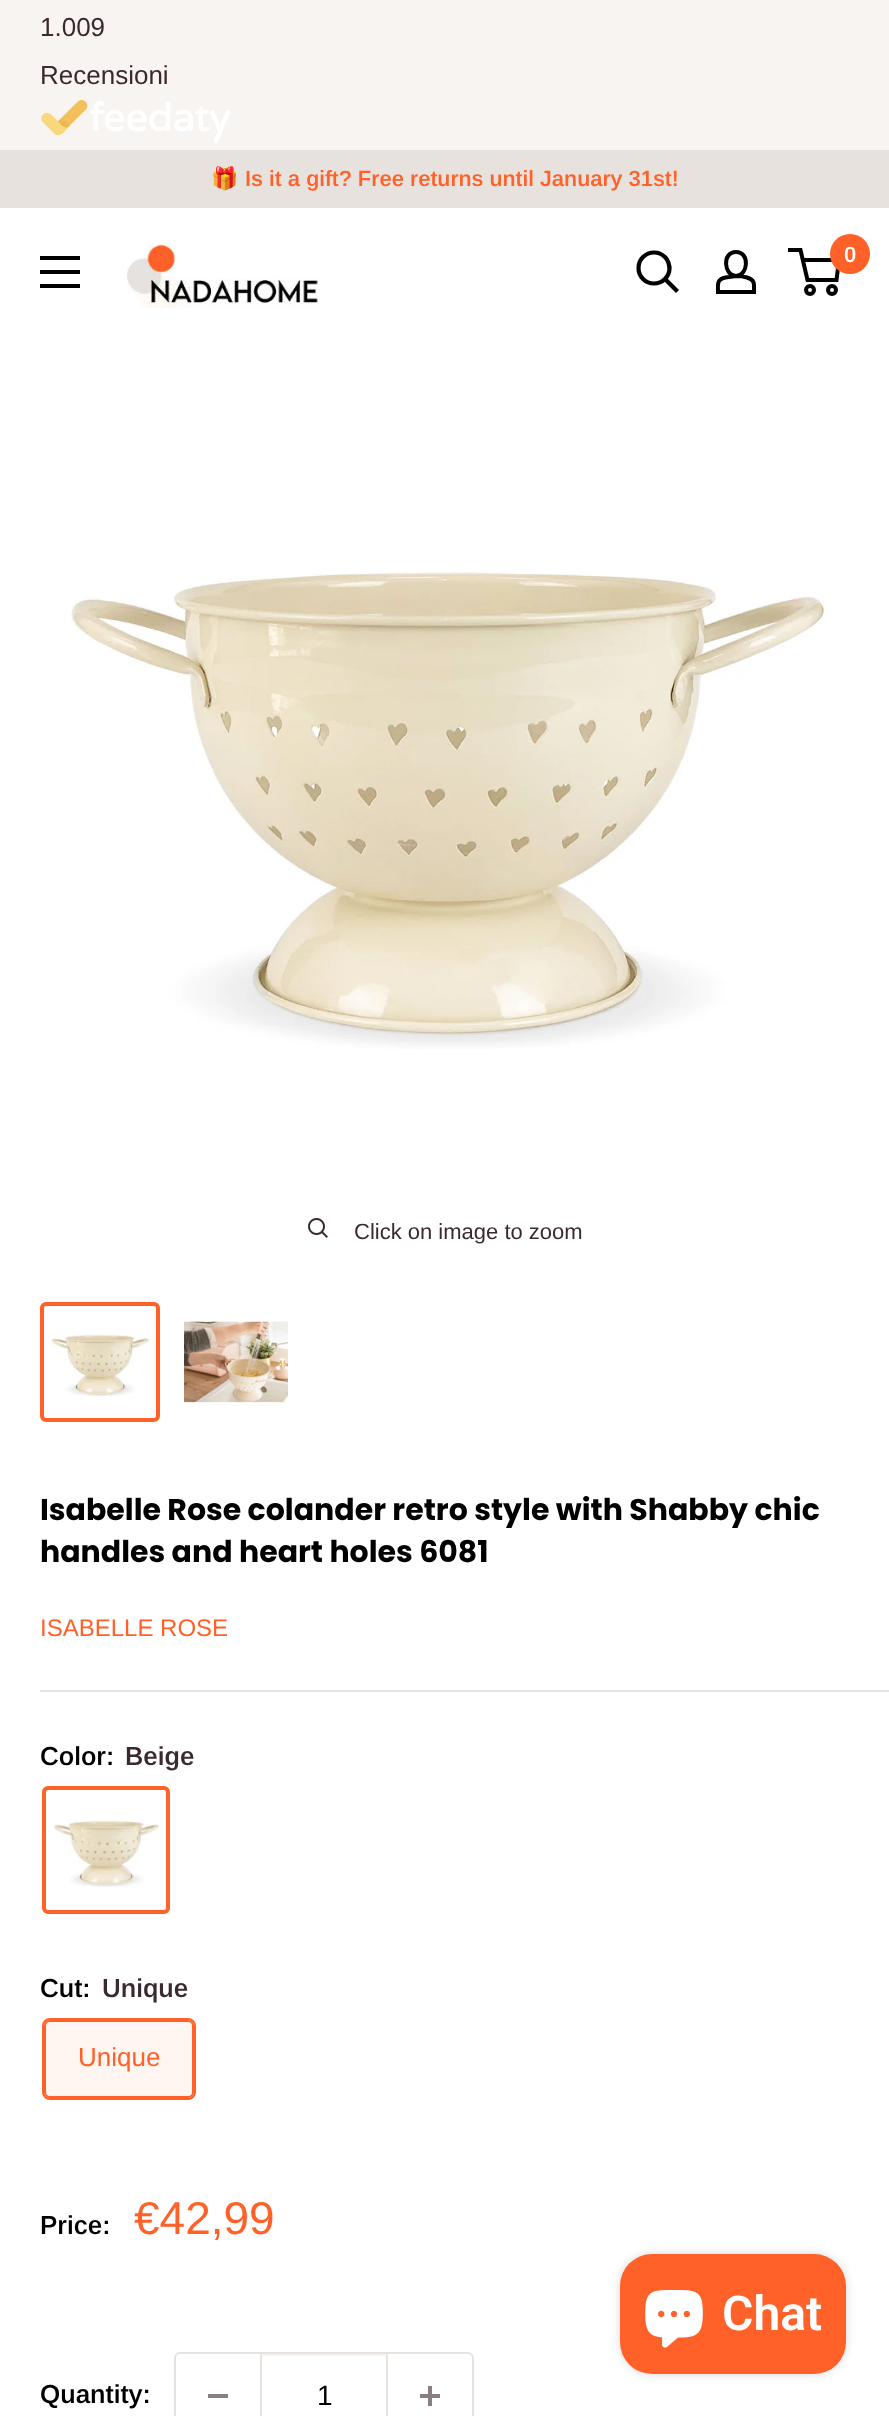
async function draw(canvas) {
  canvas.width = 889
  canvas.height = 2416
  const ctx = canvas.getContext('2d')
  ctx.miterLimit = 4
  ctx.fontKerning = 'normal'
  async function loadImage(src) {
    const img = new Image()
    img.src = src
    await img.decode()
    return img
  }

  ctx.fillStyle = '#f7f4f2'
  ctx.fillRect(0, 0, 889, 2416)
  ctx.font = '26px Arimo'
  ctx.fillStyle = '#3a2a2f'
  ctx.fillText('1.009', 40, 36)
  ctx.fillText('Recensioni', 40, 84)
  ctx.drawImage(await loadImage('image0.png'), 41, 100, 189, 43)
  ctx.fillStyle = '#e7e2de'
  ctx.fillRect(0, 150, 889, 58)
  ctx.font = 'bold 22px Noto Color Emoji'
  ctx.fillStyle = '#ff6128'
  ctx.fillText('🎁', 211, 186)
  ctx.font = '600 22px Arimo'
  ctx.fillText('Is it a gift? Free returns until January 31st!', 245, 186)
  ctx.fillStyle = '#fff'
  ctx.fillRect(0, 208, 889, 2208)
  ctx.fillStyle = '#000'
  ctx.beginPath()
  ctx.moveTo(40, 284)
  ctx.lineTo(80, 284)
  ctx.lineTo(80, 288)
  ctx.lineTo(40, 288)
  ctx.closePath()
  ctx.moveTo(40, 256)
  ctx.lineTo(80, 256)
  ctx.lineTo(80, 260)
  ctx.lineTo(40, 260)
  ctx.closePath()
  ctx.moveTo(40, 270)
  ctx.lineTo(80, 270)
  ctx.lineTo(80, 274)
  ctx.lineTo(40, 274)
  ctx.closePath()
  ctx.fill('evenodd')
  ctx.drawImage(await loadImage('image1.png'), 127, 244, 193, 64)
  ctx.beginPath()
  ctx.moveTo(676, 290)
  ctx.lineTo(665.5, 279.5)
  ctx.strokeStyle = '#000'
  ctx.lineWidth = 4.2
  ctx.lineCap = 'square'
  ctx.stroke()
  ctx.beginPath()
  ctx.arc(654, 268, 15.5, 0, 2 * Math.PI)
  ctx.stroke()
  ctx.beginPath()
  ctx.moveTo(736, 276)
  ctx.bezierCurveTo(740, 276, 743.5, 276.5, 747, 277.5)
  ctx.bezierCurveTo(755.5, 280, 754, 284.5, 754, 292)
  ctx.lineTo(718, 292)
  ctx.bezierCurveTo(718, 284, 716.5, 279.5, 725.5, 277.5)
  ctx.closePath()
  ctx.moveTo(736, 276)
  ctx.bezierCurveTo(724, 276, 721.5, 252, 736, 252)
  ctx.bezierCurveTo(750.5, 252, 748, 276, 736, 276)
  ctx.closePath()
  ctx.lineWidth = 4
  ctx.lineCap = 'butt'
  ctx.stroke()
  ctx.beginPath()
  ctx.arc(810, 290, 4, 0, 2 * Math.PI)
  ctx.stroke()
  ctx.beginPath()
  ctx.arc(832, 290, 4, 0, 2 * Math.PI)
  ctx.stroke()
  ctx.beginPath()
  ctx.moveTo(802.5, 260)
  ctx.lineTo(839, 260)
  ctx.lineTo(836.5, 280)
  ctx.lineTo(807.5, 280)
  ctx.lineTo(800.5, 250)
  ctx.lineTo(788, 250)
  ctx.stroke()
  ctx.fillStyle = '#ff6128'
  ctx.beginPath()
  ctx.arc(850, 254, 20, 0, 2 * Math.PI)
  ctx.fill()
  ctx.fillStyle = '#fff'
  ctx.fillText('0', 844, 262)
  ctx.drawImage(await loadImage('image2.png'), 71, 571, 756, 478)
  ctx.drawImage(await loadImage('image3.png'), 308, 1218, 20, 20)
  ctx.font = '22px Arimo'
  ctx.fillStyle = '#3a2a2f'
  ctx.fillText('Click on image to zoom', 354, 1239)
  ctx.beginPath()
  ctx.roundRect(42, 1304, 116, 116, 4)
  ctx.strokeStyle = '#ff6128'
  ctx.stroke()
  ctx.drawImage(await loadImage('image4.png'), 51, 1335, 99, 62)
  ctx.drawImage(await loadImage('image5.png'), 184, 1318, 104, 86)
  ctx.font = 'bold 30px Poppins'
  ctx.fillStyle = '#000'
  ctx.fillText('Isabelle Rose colander retro style with Shabby chic', 40, 1520)
  ctx.fillText('handles and heart holes 6081', 40, 1562)
  ctx.font = '24px Arimo'
  ctx.fillStyle = '#ff6128'
  ctx.fillText('ISABELLE ROSE', 40, 1636)
  ctx.fillStyle = '#e7e2de'
  ctx.fillRect(40, 1690, 849, 2)
  ctx.font = '600 26px Arimo'
  ctx.fillStyle = '#000'
  ctx.fillText('Color:', 40, 1765)
  ctx.fillStyle = '#3a2a2f'
  ctx.fillText('Beige', 125, 1765)
  ctx.beginPath()
  ctx.roundRect(44, 1788, 124, 124, 4)
  ctx.stroke()
  ctx.drawImage(await loadImage('image6.png'), 53, 1820, 107, 67)
  ctx.fillStyle = '#000'
  ctx.fillText('Cut:', 40, 1997)
  ctx.fillStyle = '#3a2a2f'
  ctx.fillText('Unique', 102, 1997)
  ctx.beginPath()
  ctx.roundRect(43, 2019, 152, 80, 7)
  ctx.lineWidth = 2
  ctx.stroke()
  ctx.fillStyle = '#ff61280f'
  ctx.fillRect(44, 2020, 150, 78)
  ctx.beginPath()
  ctx.roundRect(45, 2021, 148, 76, 5)
  ctx.stroke()
  ctx.font = '26px Arimo'
  ctx.fillStyle = '#ff6128'
  ctx.fillText('Unique', 78, 2066)
  ctx.font = '600 26px Arimo'
  ctx.fillStyle = '#000'
  ctx.fillText('Price:', 40, 2234)
  ctx.font = '46px Arimo'
  ctx.fillStyle = '#ff6128'
  ctx.fillText('€42,99', 134, 2234)
  ctx.font = '600 26px Arimo'
  ctx.fillStyle = '#000'
  ctx.fillText('Quantity:', 40, 2403)
  ctx.beginPath()
  ctx.roundRect(175, 2353, 298, 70, 5)
  ctx.strokeStyle = '#e7e2de'
  ctx.stroke()
  ctx.fillStyle = '#897f82'
  ctx.fillRect(208, 2394, 20, 4)
  ctx.fillStyle = '#f5f3f2'
  ctx.fillRect(262, 2354, 124, 2)
  ctx.fillStyle = '#e7e2de'
  ctx.fillRect(386, 2354, 2, 62)
  ctx.fillRect(260, 2354, 2, 62)
  ctx.font = '28px Arimo'
  ctx.fillStyle = '#000'
  ctx.fillText('1', 317, 2405)
  ctx.drawImage(await loadImage('image7.png'), 420, 2386, 20, 20)
  ctx.fillStyle = '#00000026'
  ctx.filter = 'blur(5px)'
  ctx.beginPath()
  ctx.roundRect(620, 2254, 226, 120, 32)
  ctx.fill()
  ctx.filter = 'none'
  ctx.fillStyle = '#ff6128'
  ctx.beginPath()
  ctx.roundRect(620, 2254, 226, 120, 32)
  ctx.fill()
  ctx.drawImage(await loadImage('image8.png'), 645, 2290, 58, 58)
  ctx.font = '600 48px Roboto'
  ctx.fillStyle = '#fff'
  ctx.fillText('Chat', 722, 2330)
}

draw(document.querySelector('canvas'))
